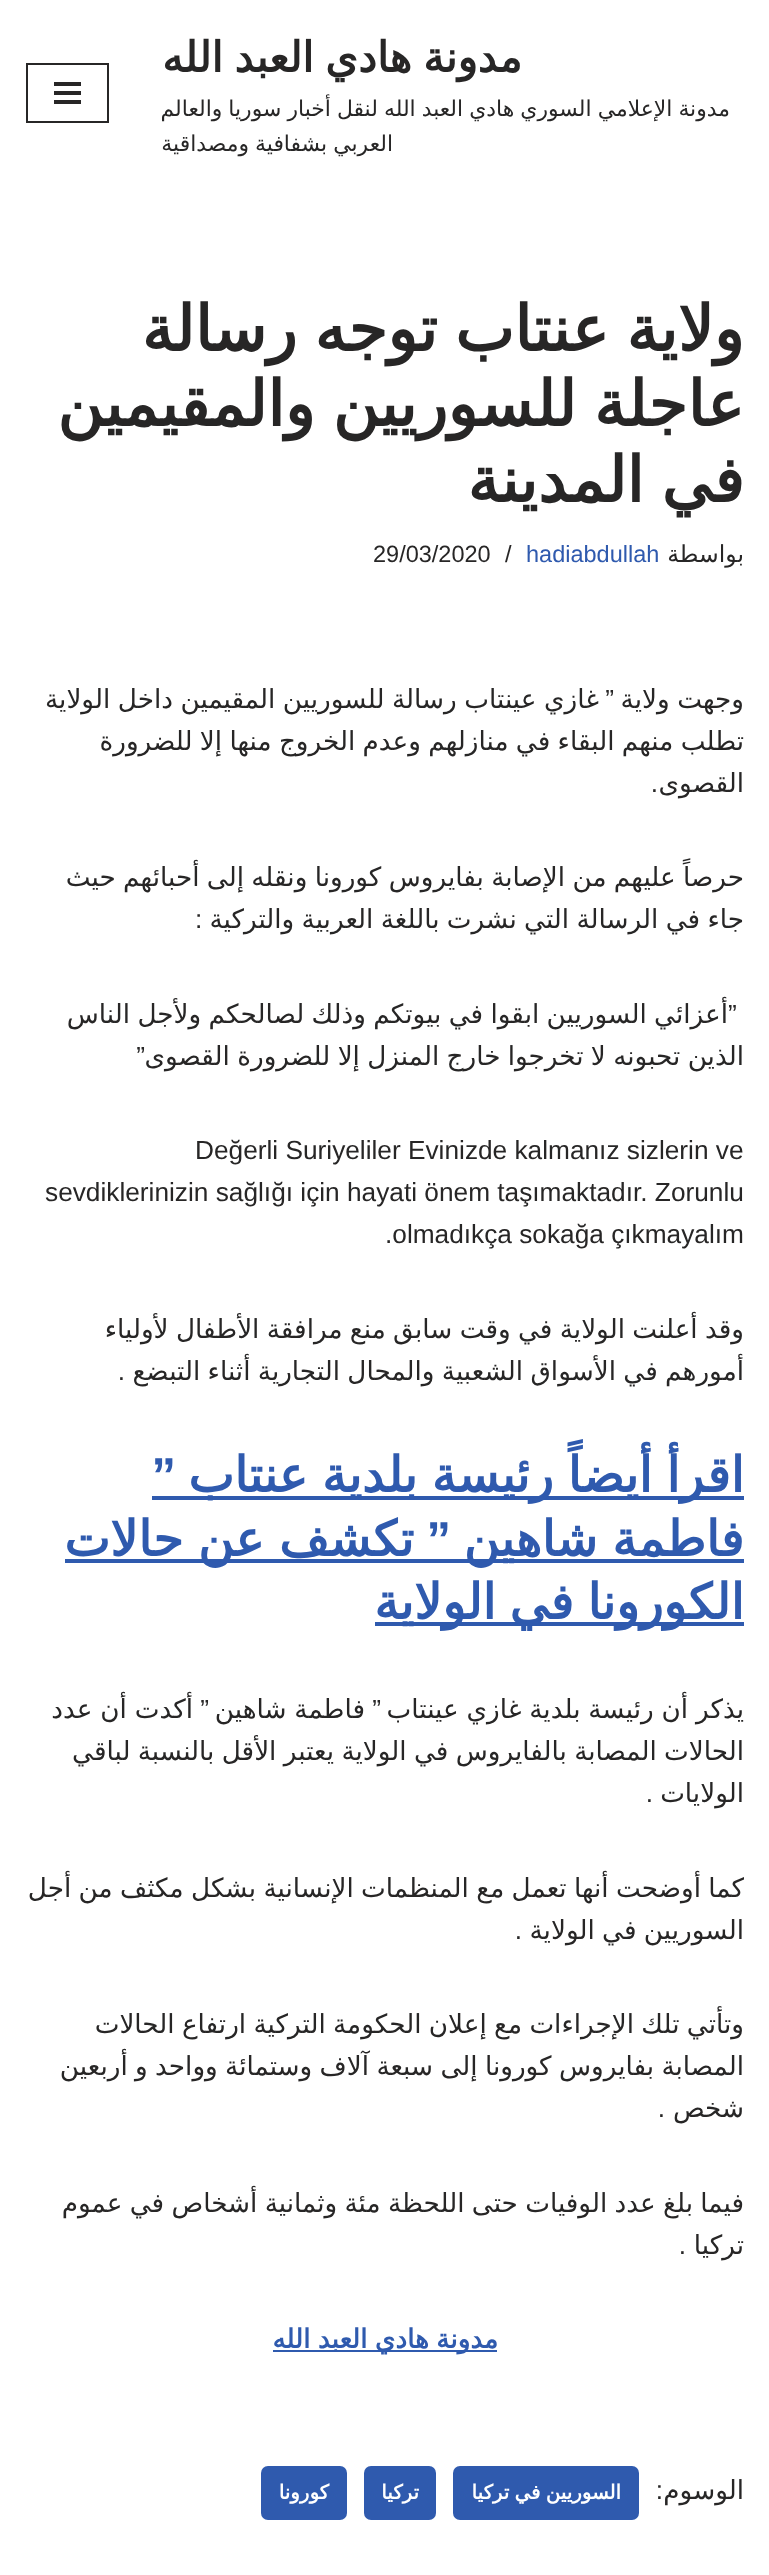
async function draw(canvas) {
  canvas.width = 769
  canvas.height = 2575
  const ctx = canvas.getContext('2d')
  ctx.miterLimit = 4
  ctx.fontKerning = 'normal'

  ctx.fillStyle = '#fff'
  ctx.fillRect(0, 0, 769, 2575)
  ctx.wordSpacing = '-2px'
  ctx.direction = 'rtl'
  ctx.font = 'bold 42px DejaVu Sans'
  ctx.fillStyle = '#272626'
  ctx.fillText('مدونة هادي العبد الله', 522, 72)
  ctx.wordSpacing = '-0.9px'
  ctx.font = '21.9px DejaVu Sans'
  ctx.fillText('مدونة الإعلامي السوري هادي العبد الله لنقل أخبار سوريا والعالم', 730, 116)
  ctx.fillText('العربي بشفافية ومصداقية', 393, 151)
  ctx.strokeStyle = '#272626'
  ctx.lineWidth = 2
  ctx.strokeRect(27, 64, 81, 58)
  ctx.fillRect(54, 82, 27, 4)
  ctx.fillRect(54, 91, 27, 4)
  ctx.fillRect(54, 100, 27, 4)
  ctx.wordSpacing = '-2.5px'
  ctx.font = 'bold 63px DejaVu Sans'
  ctx.fillText('ولاية عنتاب توجه رسالة', 744, 351)
  ctx.fillText('عاجلة للسوريين والمقيمين', 744, 426)
  ctx.fillText('في المدينة', 744, 502)
  ctx.wordSpacing = '0px'
  ctx.font = '23.5px DejaVu Sans'
  ctx.fillText('بواسطة', 744, 562)
  ctx.direction = 'ltr'
  ctx.font = '23.5px Liberation Sans'
  ctx.fillStyle = '#2f5aae'
  ctx.fillText('hadiabdullah', 526, 562)
  ctx.fillStyle = '#272626'
  ctx.fillText('/', 505, 562)
  ctx.fillText('29/03/2020', 373, 562)
  ctx.wordSpacing = '-0.75px'
  ctx.direction = 'rtl'
  ctx.font = '26.25px DejaVu Sans'
  ctx.fillText('وجهت ولاية', 744, 708)
  ctx.wordSpacing = '0px'
  ctx.font = '26.25px Liberation Sans'
  ctx.fillText('”', 614, 708)
  ctx.wordSpacing = '-0.75px'
  ctx.font = '26.25px DejaVu Sans'
  ctx.fillText('غازي عينتاب رسالة للسوريين المقيمين داخل الولاية', 599, 708)
  ctx.wordSpacing = '-1px'
  ctx.fillText('تطلب منهم البقاء في منازلهم وعدم الخروج منها إلا للضرورة', 744, 750)
  ctx.wordSpacing = '0px'
  ctx.fillText('القصوى', 744, 792)
  ctx.font = '26.25px Liberation Sans'
  ctx.fillText('.', 658, 792)
  ctx.wordSpacing = '-1px'
  ctx.font = '26.25px DejaVu Sans'
  ctx.fillText('حرصاً عليهم من الإصابة بفايروس كورونا ونقله إلى أحبائهم حيث', 744, 886)
  ctx.fillText('جاء في الرسالة التي نشرت باللغة العربية والتركية', 744, 928)
  ctx.wordSpacing = '0px'
  ctx.direction = 'ltr'
  ctx.font = '26.25px Liberation Sans'
  ctx.fillText(':', 195, 928)
  ctx.fillText('”', 728, 1023)
  ctx.wordSpacing = '-1px'
  ctx.direction = 'rtl'
  ctx.font = '26.25px DejaVu Sans'
  ctx.fillText('أعزائي السوريين ابقوا في بيوتكم وذلك لصالحكم ولأجل الناس', 728, 1023)
  ctx.fillText('الذين تحبونه لا تخرجوا خارج المنزل إلا للضرورة القصوى', 744, 1065)
  ctx.wordSpacing = '0px'
  ctx.font = '26.25px Liberation Sans'
  ctx.fillText('”', 145, 1065)
  ctx.direction = 'ltr'
  ctx.fillText('Değerli Suriyeliler Evinizde kalmanız sizlerin ve', 195, 1159)
  ctx.fillText('sevdiklerinizin sağlığı için hayati önem taşımaktadır. Zorunlu', 45, 1201)
  ctx.fillText('.olmadıkça sokağa çıkmayalım', 385, 1243)
  ctx.wordSpacing = '-1px'
  ctx.direction = 'rtl'
  ctx.font = '26.25px DejaVu Sans'
  ctx.fillText('وقد أعلنت الولاية في وقت سابق منع مرافقة الأطفال لأولياء', 744, 1338)
  ctx.fillText('أمورهم في الأسواق الشعبية والمحال التجارية أثناء التبضع', 744, 1380)
  ctx.wordSpacing = '0px'
  ctx.font = '26.25px Liberation Sans'
  ctx.fillText('.', 125, 1380)
  ctx.fillStyle = '#2f5aae'
  ctx.fillRect(152, 1496, 592, 4)
  ctx.wordSpacing = '-1.5px'
  ctx.font = 'bold 49px DejaVu Sans'
  ctx.fillText('اقرأ أيضاً رئيسة بلدية عنتاب', 744, 1492)
  ctx.wordSpacing = '0px'
  ctx.font = 'bold 49px Liberation Sans'
  ctx.fillText('”', 176, 1492)
  ctx.fillRect(65, 1559, 679, 4)
  ctx.wordSpacing = '-1px'
  ctx.font = 'bold 49px DejaVu Sans'
  ctx.fillText('فاطمة شاهين', 744, 1556)
  ctx.wordSpacing = '0px'
  ctx.font = 'bold 49px Liberation Sans'
  ctx.fillText('”', 451, 1556)
  ctx.wordSpacing = '-1px'
  ctx.font = 'bold 49px DejaVu Sans'
  ctx.fillText('تكشف عن حالات', 414, 1556)
  ctx.fillRect(375, 1622, 369, 4)
  ctx.wordSpacing = '-2px'
  ctx.fillText('الكورونا في الولاية', 744, 1619)
  ctx.wordSpacing = '-0.5px'
  ctx.font = '26.25px DejaVu Sans'
  ctx.fillStyle = '#272626'
  ctx.fillText('يذكر أن رئيسة بلدية غازي عينتاب', 744, 1718)
  ctx.wordSpacing = '0px'
  ctx.font = '26.25px Liberation Sans'
  ctx.fillText('”', 381, 1718)
  ctx.wordSpacing = '-0.5px'
  ctx.font = '26.25px DejaVu Sans'
  ctx.fillText('فاطمة شاهين', 365, 1718)
  ctx.wordSpacing = '0px'
  ctx.font = '26.25px Liberation Sans'
  ctx.fillText('”', 209, 1718)
  ctx.wordSpacing = '-0.5px'
  ctx.font = '26.25px DejaVu Sans'
  ctx.fillText('أكدت أن عدد', 193, 1718)
  ctx.wordSpacing = '-1px'
  ctx.fillText('الحالات المصابة بالفايروس في الولاية يعتبر الأقل بالنسبة لباقي', 744, 1760)
  ctx.wordSpacing = '0px'
  ctx.fillText('الولايات', 744, 1802)
  ctx.font = '26.25px Liberation Sans'
  ctx.fillText('.', 653, 1802)
  ctx.wordSpacing = '-1px'
  ctx.font = '26.25px DejaVu Sans'
  ctx.fillText('كما أوضحت أنها تعمل مع المنظمات الإنسانية بشكل مكثف من أجل', 744, 1897)
  ctx.fillText('السوريين في الولاية', 744, 1939)
  ctx.wordSpacing = '0px'
  ctx.font = '26.25px Liberation Sans'
  ctx.fillText('.', 522, 1939)
  ctx.wordSpacing = '-1px'
  ctx.font = '26.25px DejaVu Sans'
  ctx.fillText('وتأتي تلك الإجراءات مع إعلان الحكومة التركية ارتفاع الحالات', 744, 2033)
  ctx.fillText('المصابة بفايروس كورونا إلى سبعة آلاف وستمائة وواحد و أربعين', 744, 2075)
  ctx.wordSpacing = '0px'
  ctx.fillText('شخص', 744, 2117)
  ctx.font = '26.25px Liberation Sans'
  ctx.fillText('.', 665, 2117)
  ctx.wordSpacing = '-1px'
  ctx.font = '26.25px DejaVu Sans'
  ctx.fillText('فيما بلغ عدد الوفيات حتى اللحظة مئة وثمانية أشخاص في عموم', 744, 2212)
  ctx.wordSpacing = '0px'
  ctx.fillText('تركيا', 744, 2254)
  ctx.font = '26.25px Liberation Sans'
  ctx.fillText('.', 686, 2254)
  ctx.fillStyle = '#2f5aae'
  ctx.fillRect(273, 2350, 224, 2)
  ctx.wordSpacing = '-1px'
  ctx.font = 'bold 26.25px DejaVu Sans'
  ctx.fillText('مدونة هادي العبد الله', 498, 2348)
  ctx.wordSpacing = '0px'
  ctx.font = '26.25px DejaVu Sans'
  ctx.fillStyle = '#272626'
  ctx.fillText('الوسوم', 744, 2499)
  ctx.font = '26.25px Liberation Sans'
  ctx.fillText(':', 663, 2499)
  ctx.fillStyle = '#2f5aae'
  ctx.beginPath()
  ctx.roundRect(453, 2466, 186, 54, 7)
  ctx.fill()
  ctx.wordSpacing = '-1px'
  ctx.font = 'bold 19.75px DejaVu Sans'
  ctx.fillStyle = '#fff'
  ctx.fillText('السوريين في تركيا', 621, 2499)
  ctx.fillStyle = '#2f5aae'
  ctx.beginPath()
  ctx.roundRect(364, 2466, 72, 54, 7)
  ctx.fill()
  ctx.wordSpacing = '0px'
  ctx.fillStyle = '#fff'
  ctx.fillText('تركيا', 419, 2499)
  ctx.fillStyle = '#2f5aae'
  ctx.beginPath()
  ctx.roundRect(261, 2466, 86, 54, 7)
  ctx.fill()
  ctx.fillStyle = '#fff'
  ctx.fillText('كورونا', 329, 2499)
}

draw(document.querySelector('canvas'))
